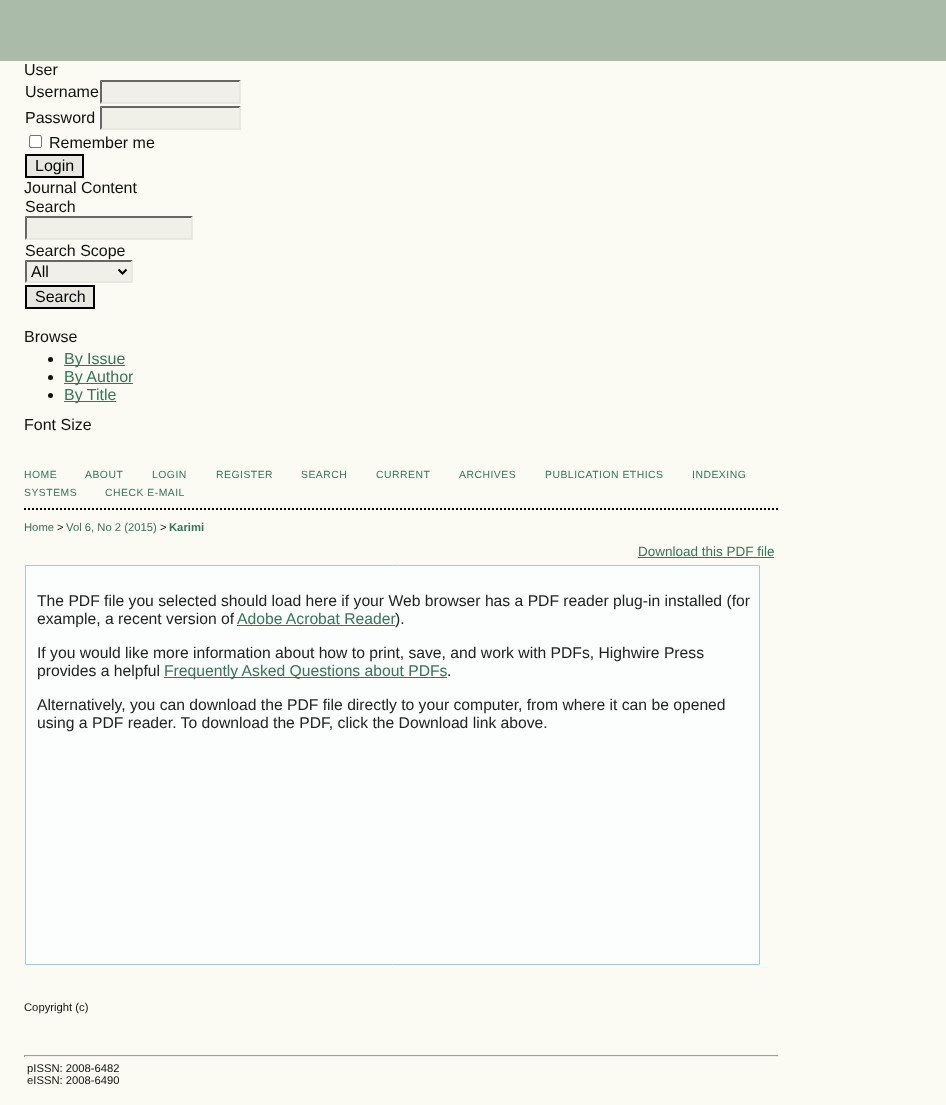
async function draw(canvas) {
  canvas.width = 946
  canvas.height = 1105
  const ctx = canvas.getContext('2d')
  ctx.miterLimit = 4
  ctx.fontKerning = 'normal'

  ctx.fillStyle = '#fbfbf3'
  ctx.fillRect(0, 0, 946, 1105)
  ctx.fillStyle = '#aba'
  ctx.fillRect(0, 0, 946, 61)
  ctx.font = '16px Liberation Sans'
  ctx.fillStyle = '#111'
  ctx.fillText('User', 24, 75)
  ctx.fillText('Username', 25, 97)
  ctx.fillStyle = '#f0f0e8'
  ctx.fillRect(100, 80, 141, 24)
  ctx.fillStyle = '#666'
  ctx.beginPath()
  ctx.moveTo(100, 80)
  ctx.lineTo(241, 80)
  ctx.lineTo(239, 82)
  ctx.lineTo(102, 82)
  ctx.closePath()
  ctx.fill()
  ctx.fillStyle = '#e8e8e1'
  ctx.beginPath()
  ctx.moveTo(241, 80)
  ctx.lineTo(241, 104)
  ctx.lineTo(239, 102)
  ctx.lineTo(239, 82)
  ctx.closePath()
  ctx.fill()
  ctx.beginPath()
  ctx.moveTo(241, 104)
  ctx.lineTo(100, 104)
  ctx.lineTo(102, 102)
  ctx.lineTo(239, 102)
  ctx.closePath()
  ctx.fill()
  ctx.fillStyle = '#666'
  ctx.beginPath()
  ctx.moveTo(100, 104)
  ctx.lineTo(100, 80)
  ctx.lineTo(102, 82)
  ctx.lineTo(102, 102)
  ctx.closePath()
  ctx.fill()
  ctx.fillStyle = '#111'
  ctx.fillText('Password', 25, 123)
  ctx.fillStyle = '#f0f0e8'
  ctx.fillRect(100, 106, 141, 24)
  ctx.fillStyle = '#666'
  ctx.beginPath()
  ctx.moveTo(100, 106)
  ctx.lineTo(241, 106)
  ctx.lineTo(239, 108)
  ctx.lineTo(102, 108)
  ctx.closePath()
  ctx.fill()
  ctx.fillStyle = '#e8e8e1'
  ctx.beginPath()
  ctx.moveTo(241, 106)
  ctx.lineTo(241, 130)
  ctx.lineTo(239, 128)
  ctx.lineTo(239, 108)
  ctx.closePath()
  ctx.fill()
  ctx.beginPath()
  ctx.moveTo(241, 130)
  ctx.lineTo(100, 130)
  ctx.lineTo(102, 128)
  ctx.lineTo(239, 128)
  ctx.closePath()
  ctx.fill()
  ctx.fillStyle = '#666'
  ctx.beginPath()
  ctx.moveTo(100, 130)
  ctx.lineTo(100, 106)
  ctx.lineTo(102, 108)
  ctx.lineTo(102, 128)
  ctx.closePath()
  ctx.fill()
  ctx.fillStyle = '#fff'
  ctx.beginPath()
  ctx.roundRect(29.5, 135.5, 12, 12, 1.5)
  ctx.fill()
  ctx.strokeStyle = '#767676'
  ctx.stroke()
  ctx.fillStyle = '#111'
  ctx.fillText('Remember me', 49, 148)
  ctx.fillStyle = '#e8e8e1'
  ctx.beginPath()
  ctx.rect(26, 155, 57, 22)
  ctx.fill()
  ctx.strokeStyle = '#000'
  ctx.lineWidth = 2
  ctx.stroke()
  ctx.fillStyle = '#000'
  ctx.fillText('Login', 35, 171)
  ctx.fillStyle = '#111'
  ctx.fillText('Journal Content', 24, 193)
  ctx.fillText('Search', 25, 212)
  ctx.fillStyle = '#f0f0e8'
  ctx.fillRect(25, 216, 168, 24)
  ctx.fillStyle = '#666'
  ctx.beginPath()
  ctx.moveTo(25, 216)
  ctx.lineTo(193, 216)
  ctx.lineTo(191, 218)
  ctx.lineTo(27, 218)
  ctx.closePath()
  ctx.fill()
  ctx.fillStyle = '#e8e8e1'
  ctx.beginPath()
  ctx.moveTo(193, 216)
  ctx.lineTo(193, 240)
  ctx.lineTo(191, 238)
  ctx.lineTo(191, 218)
  ctx.closePath()
  ctx.fill()
  ctx.beginPath()
  ctx.moveTo(193, 240)
  ctx.lineTo(25, 240)
  ctx.lineTo(27, 238)
  ctx.lineTo(191, 238)
  ctx.closePath()
  ctx.fill()
  ctx.fillStyle = '#666'
  ctx.beginPath()
  ctx.moveTo(25, 240)
  ctx.lineTo(25, 216)
  ctx.lineTo(27, 218)
  ctx.lineTo(27, 238)
  ctx.closePath()
  ctx.fill()
  ctx.fillStyle = '#111'
  ctx.fillText('Search Scope', 25, 256)
  ctx.fillStyle = '#f0f0e8'
  ctx.fillRect(25, 260, 108, 23)
  ctx.fillStyle = '#666'
  ctx.beginPath()
  ctx.moveTo(25, 260)
  ctx.lineTo(133, 260)
  ctx.lineTo(131, 262)
  ctx.lineTo(27, 262)
  ctx.closePath()
  ctx.fill()
  ctx.fillStyle = '#e8e8e1'
  ctx.beginPath()
  ctx.moveTo(133, 260)
  ctx.lineTo(133, 283)
  ctx.lineTo(131, 281)
  ctx.lineTo(131, 262)
  ctx.closePath()
  ctx.fill()
  ctx.beginPath()
  ctx.moveTo(133, 283)
  ctx.lineTo(25, 283)
  ctx.lineTo(27, 281)
  ctx.lineTo(131, 281)
  ctx.closePath()
  ctx.fill()
  ctx.fillStyle = '#666'
  ctx.beginPath()
  ctx.moveTo(25, 283)
  ctx.lineTo(25, 260)
  ctx.lineTo(27, 262)
  ctx.lineTo(27, 281)
  ctx.closePath()
  ctx.fill()
  ctx.beginPath()
  ctx.moveTo(118.5, 269.5)
  ctx.lineTo(122.5, 273.5)
  ctx.lineTo(126.5, 269.5)
  ctx.stroke()
  ctx.fillStyle = '#000'
  ctx.fillText('All', 31, 277)
  ctx.fillStyle = '#e8e8e1'
  ctx.beginPath()
  ctx.rect(26, 286, 68, 22)
  ctx.fill()
  ctx.stroke()
  ctx.fillStyle = '#000'
  ctx.fillText('Search', 35, 302)
  ctx.fillStyle = '#111'
  ctx.fillText('Browse', 24, 342)
  ctx.beginPath()
  ctx.arc(50.5, 359.5, 2.5, 0, 2 * Math.PI)
  ctx.fill()
  ctx.fillStyle = '#375'
  ctx.fillRect(64, 365, 61, 1)
  ctx.fillText('By Issue', 64, 364)
  ctx.fillStyle = '#111'
  ctx.beginPath()
  ctx.arc(50.5, 377.5, 2.5, 0, 2 * Math.PI)
  ctx.fill()
  ctx.fillStyle = '#375'
  ctx.fillRect(64, 383, 69, 1)
  ctx.fillText('By Author', 64, 382)
  ctx.fillStyle = '#111'
  ctx.beginPath()
  ctx.arc(50.5, 395.5, 2.5, 0, 2 * Math.PI)
  ctx.fill()
  ctx.fillStyle = '#375'
  ctx.fillRect(64, 401, 52, 1)
  ctx.fillText('By Title', 64, 400)
  ctx.fillStyle = '#111'
  ctx.fillText('Font Size', 24, 430)
  ctx.beginPath()
  ctx.moveTo(24, 509)
  ctx.lineTo(779, 509)
  ctx.setLineDash([2, 2])
  ctx.stroke()
  ctx.letterSpacing = '0.5px'
  ctx.font = '10.4px Liberation Sans'
  ctx.fillStyle = '#375'
  ctx.fillText('HOME', 24, 478)
  ctx.fillText('ABOUT', 85, 478)
  ctx.fillText('LOGIN', 152, 478)
  ctx.fillText('REGISTER', 216, 478)
  ctx.fillText('SEARCH', 301, 478)
  ctx.fillText('CURRENT', 376, 478)
  ctx.fillText('ARCHIVES', 459, 478)
  ctx.fillText('PUBLICATION ETHICS', 545, 478)
  ctx.fillText('INDEXING', 692, 478)
  ctx.fillText('SYSTEMS', 24, 496)
  ctx.fillText('CHECK E-MAIL', 105, 496)
  ctx.letterSpacing = '0px'
  ctx.font = '11.25px Liberation Sans'
  ctx.fillText('Home', 24, 531)
  ctx.fillStyle = '#111'
  ctx.fillText('>', 57, 531)
  ctx.fillStyle = '#375'
  ctx.fillText('Vol 6, No 2 (2015)', 66, 531)
  ctx.fillStyle = '#111'
  ctx.fillText('>', 160, 531)
  ctx.font = 'bold 11.25px Liberation Sans'
  ctx.fillStyle = '#375'
  ctx.fillText('Karimi', 169, 531)
  ctx.font = '13.5px Liberation Sans'
  ctx.fillText('Download this PDF file', 638, 556)
  ctx.fillRect(638, 557, 136, 1)
  ctx.fillStyle = '#fcfdfd'
  ctx.beginPath()
  ctx.rect(25.5, 565.5, 734, 399)
  ctx.fill()
  ctx.strokeStyle = '#a6c9e2'
  ctx.lineWidth = 1
  ctx.setLineDash([])
  ctx.stroke()
  ctx.font = '15.7px Liberation Sans'
  ctx.fillStyle = '#222'
  ctx.fillText('The PDF file you selected should load here if your Web browser has a PDF reader plug-in installed (for', 37, 606)
  ctx.fillText('example, a recent version of', 37, 624)
  ctx.fillStyle = '#375'
  ctx.fillText('Adobe Acrobat Reader', 237, 624)
  ctx.fillRect(237, 625, 158, 1)
  ctx.fillStyle = '#222'
  ctx.fillText(').', 395, 624)
  ctx.fillText('If you would like more information about how to print, save, and work with PDFs, Highwire Press', 37, 658)
  ctx.fillText('provides a helpful', 37, 676)
  ctx.fillStyle = '#375'
  ctx.fillRect(164, 677, 283, 1)
  ctx.fillText('Frequently Asked Questions about PDFs', 164, 676)
  ctx.fillStyle = '#222'
  ctx.fillText('.', 447, 676)
  ctx.fillText('Alternatively, you can download the PDF file directly to your computer, from where it can be opened', 37, 710)
  ctx.fillText('using a PDF reader. To download the PDF, click the Download link above.', 37, 728)
  ctx.font = '11.25px Liberation Sans'
  ctx.fillStyle = '#111'
  ctx.fillText('Copyright (c)', 24, 1011)
  ctx.fillStyle = '#9f9f9f'
  ctx.fillRect(24, 1055, 755, 1)
  ctx.fillStyle = '#eee'
  ctx.fillRect(778, 1055, 1, 2)
  ctx.fillRect(24, 1056, 755, 1)
  ctx.fillStyle = '#9f9f9f'
  ctx.fillRect(24, 1055, 1, 2)
  ctx.fillStyle = '#111'
  ctx.fillText('pISSN: 2008-6482', 27, 1072)
  ctx.fillText('eISSN: 2008-6490', 27, 1084)
}

draw(document.querySelector('canvas'))
